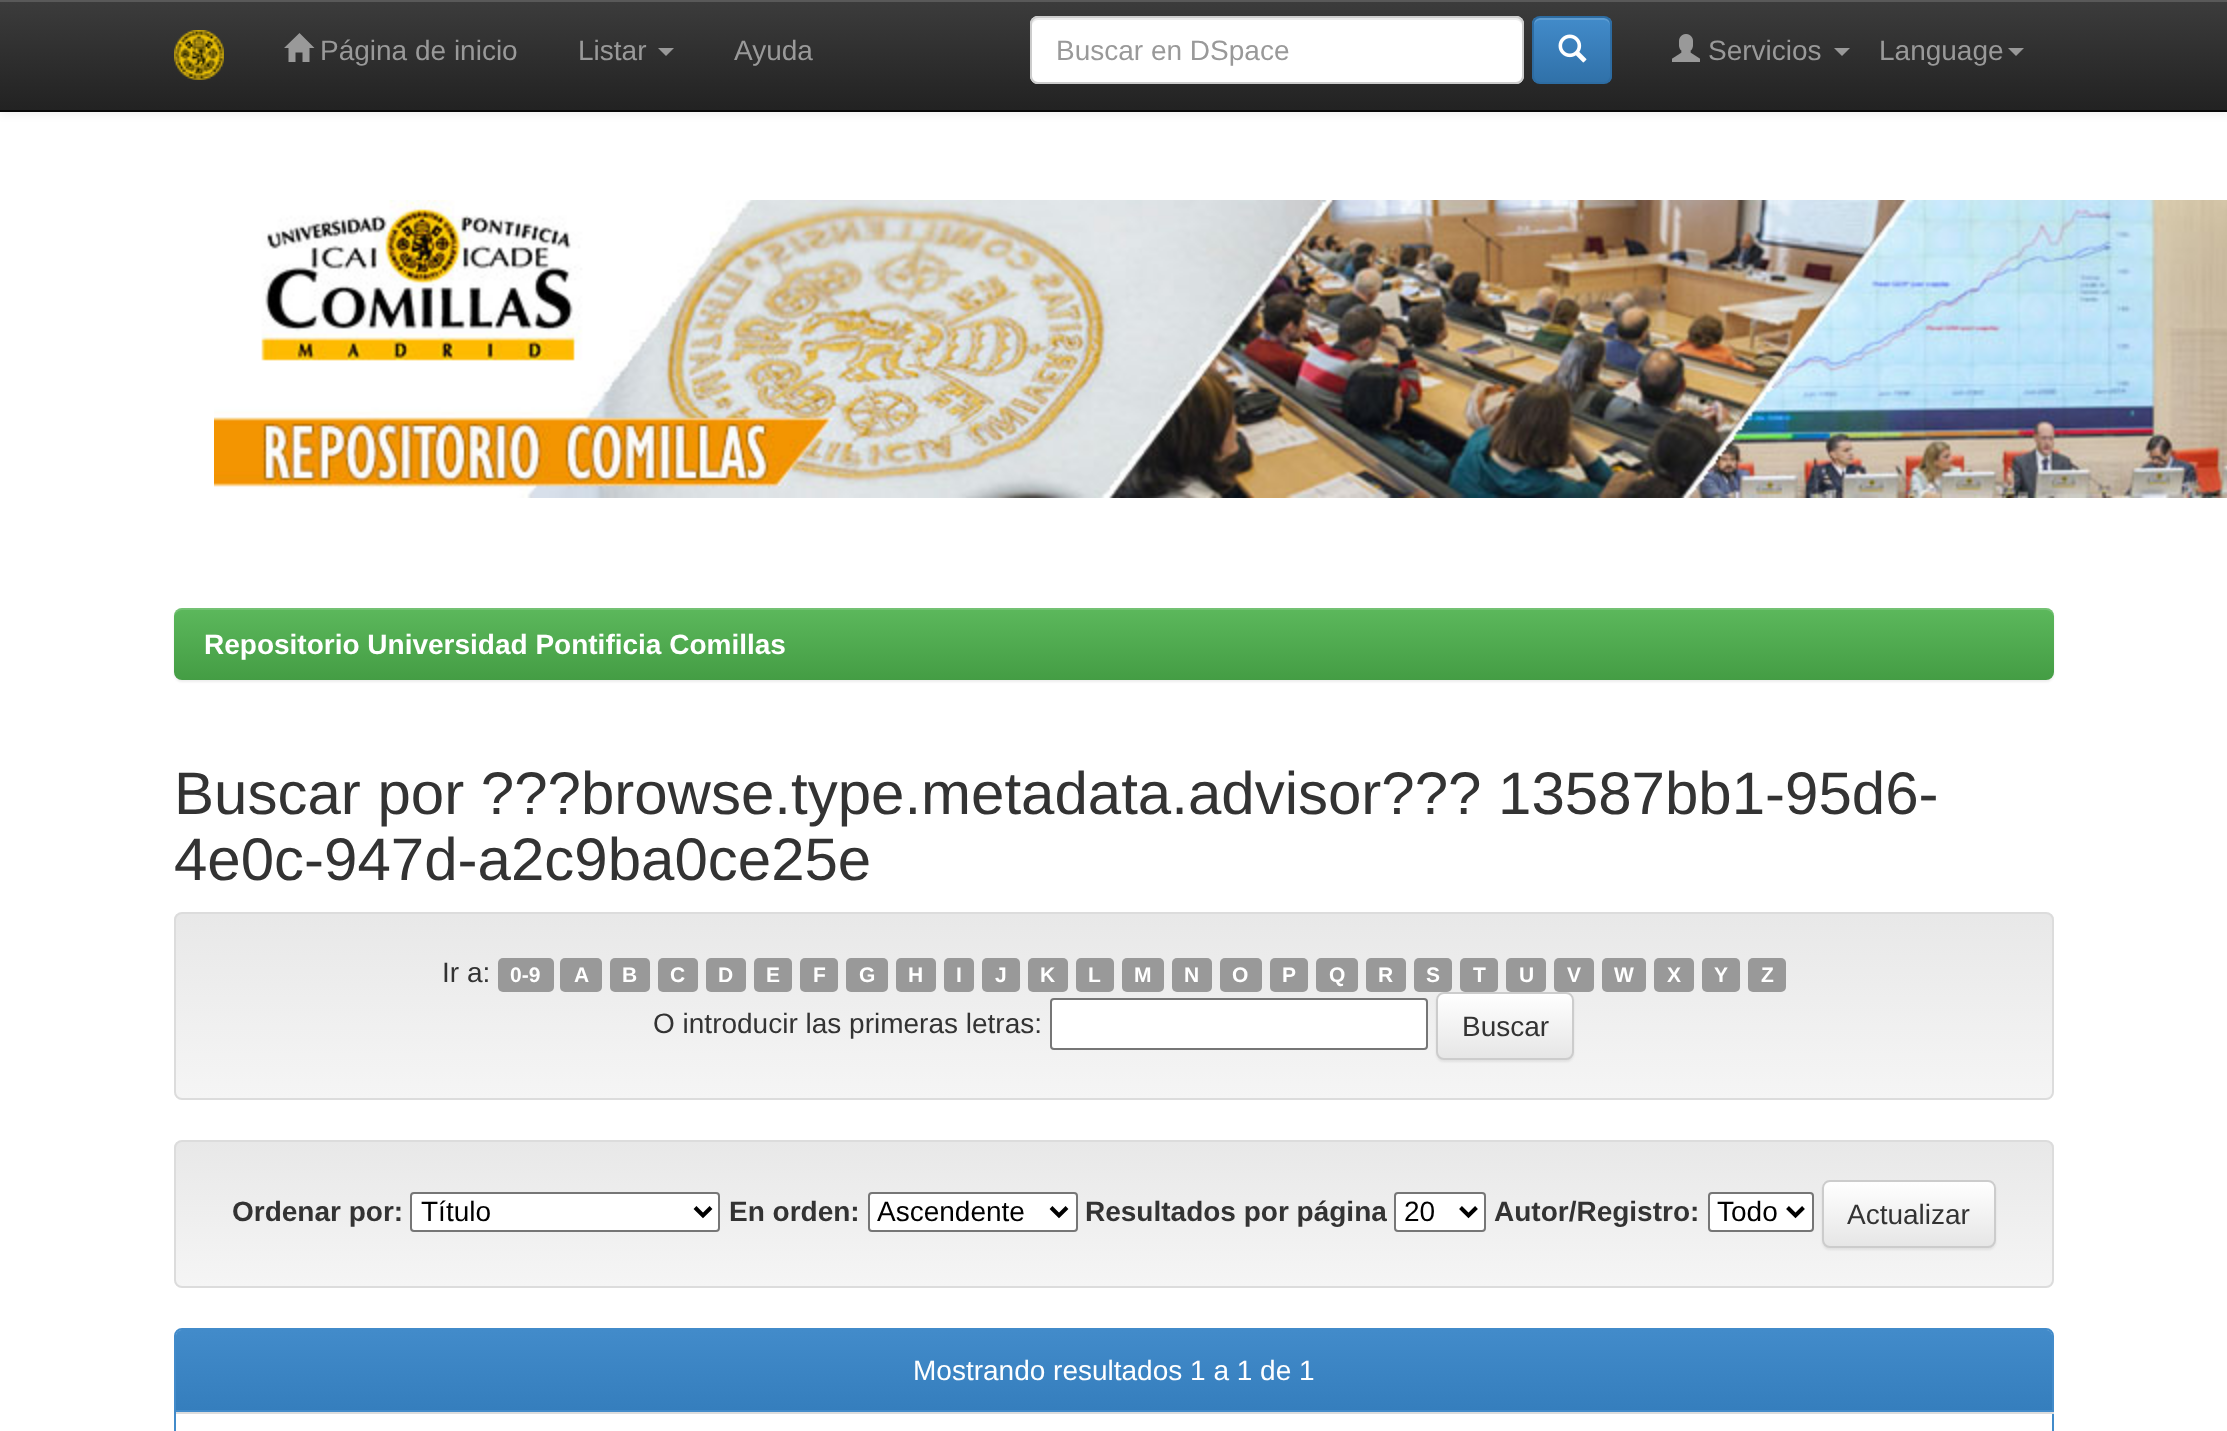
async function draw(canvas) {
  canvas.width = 2227
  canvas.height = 1431
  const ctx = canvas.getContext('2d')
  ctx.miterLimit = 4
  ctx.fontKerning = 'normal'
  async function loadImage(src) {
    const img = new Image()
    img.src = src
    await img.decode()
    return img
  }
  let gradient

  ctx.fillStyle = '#fff'
  ctx.fillRect(0, 0, 2227, 1431)
  ctx.fillStyle = '#00000012'
  ctx.filter = 'blur(5px)'
  ctx.beginPath()
  ctx.rect(0, 2, 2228, 112)
  ctx.fill()
  ctx.filter = 'none'
  gradient = ctx.createLinearGradient(1114, 0, 1114, 110)
  gradient.addColorStop(0, '#3c3c3c')
  gradient.addColorStop(1, '#222')
  ctx.fillStyle = gradient
  ctx.fillRect(0, 2, 2227, 108)
  ctx.fillStyle = '#595959'
  ctx.fillRect(0, 0, 2227, 2)
  ctx.fillStyle = '#080808'
  ctx.fillRect(0, 110, 2227, 2)
  ctx.drawImage(await loadImage('image0.png'), 174, 30, 50, 50)
  ctx.fillStyle = '#999'
  ctx.beginPath()
  ctx.moveTo(314.5, 48)
  ctx.lineTo(309.5, 48)
  ctx.lineTo(309.5, 62)
  ctx.lineTo(302.5, 62)
  ctx.lineTo(302.5, 52.5)
  ctx.lineTo(295.5, 52.5)
  ctx.lineTo(295.5, 62)
  ctx.lineTo(288.5, 62)
  ctx.lineTo(288.5, 48)
  ctx.lineTo(284, 48)
  ctx.lineTo(299.5, 33)
  ctx.closePath()
  ctx.fill()
  ctx.font = '28px Liberation Sans'
  ctx.fillText('Página de inicio', 320, 60)
  ctx.fillText('Listar', 578, 60)
  ctx.beginPath()
  ctx.moveTo(658, 48)
  ctx.lineTo(674, 48)
  ctx.lineTo(666, 56)
  ctx.closePath()
  ctx.fill()
  ctx.fillText('Ayuda', 734, 60)
  ctx.fillStyle = '#fff'
  ctx.beginPath()
  ctx.roundRect(1030, 16, 494, 68, 8)
  ctx.fill()
  ctx.fillStyle = '#ececec'
  ctx.beginPath()
  ctx.moveTo(1038, 20)
  ctx.lineTo(1516, 20)
  ctx.bezierCurveTo(1519, 20, 1522, 23, 1522, 26)
  ctx.bezierCurveTo(1522, 22, 1521, 18, 1516, 18)
  ctx.lineTo(1038, 18)
  ctx.bezierCurveTo(1033, 18, 1032, 22, 1032, 26)
  ctx.bezierCurveTo(1032, 23, 1035, 20, 1038, 20)
  ctx.closePath()
  ctx.fill()
  ctx.beginPath()
  ctx.roundRect(1031, 17, 492, 66, 7)
  ctx.strokeStyle = '#ccc'
  ctx.lineWidth = 2
  ctx.stroke()
  ctx.fillStyle = '#999'
  ctx.fillText('Buscar en DSpace', 1056, 60)
  ctx.save()
  ctx.beginPath()
  ctx.roundRect(1532, 16, 80, 68, 8)
  ctx.clip()
  gradient = ctx.createLinearGradient(1572, 18, 1572, 82)
  gradient.addColorStop(0, '#428bca')
  gradient.addColorStop(1, '#3071a9')
  ctx.fillStyle = gradient
  ctx.fillRect(1532, 18, 80, 64)
  ctx.restore()
  ctx.fillStyle = '#5e9cd1'
  ctx.beginPath()
  ctx.moveTo(1540, 20)
  ctx.lineTo(1604, 20)
  ctx.bezierCurveTo(1607, 20, 1610, 23, 1610, 26)
  ctx.bezierCurveTo(1610, 16, 1602, 18, 1593, 18)
  ctx.lineTo(1551, 18)
  ctx.bezierCurveTo(1542, 18, 1534, 16, 1534, 26)
  ctx.bezierCurveTo(1534, 23, 1537, 20, 1540, 20)
  ctx.closePath()
  ctx.fill()
  ctx.beginPath()
  ctx.roundRect(1533, 17, 78, 66, 7)
  ctx.strokeStyle = '#2d6ca2'
  ctx.stroke()
  ctx.drawImage(await loadImage('image1.png'), 1558, 34, 29, 29)
  ctx.drawImage(await loadImage('image2.png'), 1672, 34, 28, 28)
  ctx.fillStyle = '#999'
  ctx.fillText('Servicios', 1708, 60)
  ctx.beginPath()
  ctx.moveTo(1834, 48)
  ctx.lineTo(1850, 48)
  ctx.lineTo(1842, 56)
  ctx.closePath()
  ctx.fill()
  ctx.fillText('Language', 1879, 60)
  ctx.beginPath()
  ctx.moveTo(2008, 48)
  ctx.lineTo(2024, 48)
  ctx.lineTo(2016, 56)
  ctx.closePath()
  ctx.fill()
  ctx.drawImage(await loadImage('image3.png'), 214, 200, 2013, 298)
  ctx.fillStyle = '#00000012'
  ctx.filter = 'blur(1px)'
  ctx.beginPath()
  ctx.roundRect(174, 610, 1880, 72, 8)
  ctx.fill()
  ctx.filter = 'none'
  gradient = ctx.createLinearGradient(1114, 608, 1114, 680)
  gradient.addColorStop(0, '#5cb85c')
  gradient.addColorStop(1, '#449d44')
  ctx.fillStyle = gradient
  ctx.beginPath()
  ctx.roundRect(174, 608, 1880, 72, 8)
  ctx.fill()
  ctx.fillStyle = '#ffffff26'
  ctx.beginPath()
  ctx.moveTo(182, 610)
  ctx.lineTo(2046, 610)
  ctx.bezierCurveTo(2050, 610, 2054, 614, 2054, 618)
  ctx.bezierCurveTo(2054, 613, 2052, 608, 2046, 608)
  ctx.lineTo(182, 608)
  ctx.bezierCurveTo(176, 608, 174, 613, 174, 618)
  ctx.bezierCurveTo(174, 614, 178, 610, 182, 610)
  ctx.closePath()
  ctx.fill()
  ctx.font = 'bold 28px Liberation Sans'
  ctx.fillStyle = '#fff'
  ctx.fillText('Repositorio Universidad Pontificia Comillas', 204, 654)
  ctx.font = '60px Liberation Sans'
  ctx.fillStyle = '#333'
  ctx.fillText('Buscar por ???browse.type.metadata.advisor??? 13587bb1-95d6-', 174, 814)
  ctx.fillText('4e0c-947d-a2c9ba0ce25e', 174, 880)
  ctx.save()
  ctx.beginPath()
  ctx.roundRect(174, 912, 1880, 188, 8)
  ctx.clip()
  gradient = ctx.createLinearGradient(1114, 914, 1114, 1098)
  gradient.addColorStop(0, '#e8e8e8')
  gradient.addColorStop(1, '#f5f5f5')
  ctx.fillStyle = gradient
  ctx.fillRect(174, 914, 1880, 184)
  ctx.restore()
  ctx.beginPath()
  ctx.roundRect(175, 913, 1878, 186, 7)
  ctx.strokeStyle = '#dcdcdc'
  ctx.stroke()
  ctx.font = '28px Liberation Sans'
  ctx.fillText('Ir a:', 442, 982)
  ctx.fillStyle = '#999'
  ctx.beginPath()
  ctx.roundRect(498, 958, 56, 34, 5)
  ctx.fill()
  ctx.font = 'bold 21px Liberation Sans'
  ctx.fillStyle = '#fff'
  ctx.fillText('0-9', 510, 982)
  ctx.fillStyle = '#999'
  ctx.beginPath()
  ctx.roundRect(560, 958, 42, 34, 5)
  ctx.fill()
  ctx.fillStyle = '#fff'
  ctx.fillText('A', 574, 982)
  ctx.fillStyle = '#999'
  ctx.beginPath()
  ctx.roundRect(610, 958, 40, 34, 5)
  ctx.fill()
  ctx.fillStyle = '#fff'
  ctx.fillText('B', 622, 982)
  ctx.fillStyle = '#999'
  ctx.beginPath()
  ctx.roundRect(658, 958, 40, 34, 5)
  ctx.fill()
  ctx.fillStyle = '#fff'
  ctx.fillText('C', 670, 982)
  ctx.fillStyle = '#999'
  ctx.beginPath()
  ctx.roundRect(706, 958, 40, 34, 5)
  ctx.fill()
  ctx.fillStyle = '#fff'
  ctx.fillText('D', 718, 982)
  ctx.fillStyle = '#999'
  ctx.beginPath()
  ctx.roundRect(754, 958, 38, 34, 5)
  ctx.fill()
  ctx.fillStyle = '#fff'
  ctx.fillText('E', 766, 982)
  ctx.fillStyle = '#999'
  ctx.beginPath()
  ctx.roundRect(800, 958, 38, 34, 5)
  ctx.fill()
  ctx.fillStyle = '#fff'
  ctx.fillText('F', 813, 982)
  ctx.fillStyle = '#999'
  ctx.beginPath()
  ctx.roundRect(846, 958, 42, 34, 5)
  ctx.fill()
  ctx.fillStyle = '#fff'
  ctx.fillText('G', 859, 982)
  ctx.fillStyle = '#999'
  ctx.beginPath()
  ctx.roundRect(896, 958, 40, 34, 5)
  ctx.fill()
  ctx.fillStyle = '#fff'
  ctx.fillText('H', 908, 982)
  ctx.fillStyle = '#999'
  ctx.beginPath()
  ctx.roundRect(944, 958, 30, 34, 5)
  ctx.fill()
  ctx.fillStyle = '#fff'
  ctx.fillText('I', 956, 982)
  ctx.fillStyle = '#999'
  ctx.beginPath()
  ctx.roundRect(982, 958, 38, 34, 5)
  ctx.fill()
  ctx.fillStyle = '#fff'
  ctx.fillText('J', 995, 982)
  ctx.fillStyle = '#999'
  ctx.beginPath()
  ctx.roundRect(1028, 958, 40, 34, 5)
  ctx.fill()
  ctx.fillStyle = '#fff'
  ctx.fillText('K', 1040, 982)
  ctx.fillStyle = '#999'
  ctx.beginPath()
  ctx.roundRect(1076, 958, 38, 34, 5)
  ctx.fill()
  ctx.fillStyle = '#fff'
  ctx.fillText('L', 1088, 982)
  ctx.fillStyle = '#999'
  ctx.beginPath()
  ctx.roundRect(1122, 958, 42, 34, 5)
  ctx.fill()
  ctx.fillStyle = '#fff'
  ctx.fillText('M', 1134, 982)
  ctx.fillStyle = '#999'
  ctx.beginPath()
  ctx.roundRect(1172, 958, 40, 34, 5)
  ctx.fill()
  ctx.fillStyle = '#fff'
  ctx.fillText('N', 1184, 982)
  ctx.fillStyle = '#999'
  ctx.beginPath()
  ctx.roundRect(1220, 958, 42, 34, 5)
  ctx.fill()
  ctx.fillStyle = '#fff'
  ctx.fillText('O', 1232, 982)
  ctx.fillStyle = '#999'
  ctx.beginPath()
  ctx.roundRect(1270, 958, 38, 34, 5)
  ctx.fill()
  ctx.fillStyle = '#fff'
  ctx.fillText('P', 1282, 982)
  ctx.fillStyle = '#999'
  ctx.beginPath()
  ctx.roundRect(1316, 958, 42, 34, 5)
  ctx.fill()
  ctx.fillStyle = '#fff'
  ctx.fillText('Q', 1329, 982)
  ctx.fillStyle = '#999'
  ctx.beginPath()
  ctx.roundRect(1366, 958, 40, 34, 5)
  ctx.fill()
  ctx.fillStyle = '#fff'
  ctx.fillText('R', 1378, 982)
  ctx.fillStyle = '#999'
  ctx.beginPath()
  ctx.roundRect(1414, 958, 38, 34, 5)
  ctx.fill()
  ctx.fillStyle = '#fff'
  ctx.fillText('S', 1426, 982)
  ctx.fillStyle = '#999'
  ctx.beginPath()
  ctx.roundRect(1460, 958, 38, 34, 5)
  ctx.fill()
  ctx.fillStyle = '#fff'
  ctx.fillText('T', 1473, 982)
  ctx.fillStyle = '#999'
  ctx.beginPath()
  ctx.roundRect(1506, 958, 40, 34, 5)
  ctx.fill()
  ctx.fillStyle = '#fff'
  ctx.fillText('U', 1519, 982)
  ctx.fillStyle = '#999'
  ctx.beginPath()
  ctx.roundRect(1554, 958, 40, 34, 5)
  ctx.fill()
  ctx.fillStyle = '#fff'
  ctx.fillText('V', 1567, 982)
  ctx.fillStyle = '#999'
  ctx.beginPath()
  ctx.roundRect(1602, 958, 44, 34, 5)
  ctx.fill()
  ctx.fillStyle = '#fff'
  ctx.fillText('W', 1614, 982)
  ctx.fillStyle = '#999'
  ctx.beginPath()
  ctx.roundRect(1654, 958, 40, 34, 5)
  ctx.fill()
  ctx.fillStyle = '#fff'
  ctx.fillText('X', 1667, 982)
  ctx.fillStyle = '#999'
  ctx.beginPath()
  ctx.roundRect(1702, 958, 38, 34, 5)
  ctx.fill()
  ctx.fillStyle = '#fff'
  ctx.fillText('Y', 1714, 982)
  ctx.fillStyle = '#999'
  ctx.beginPath()
  ctx.roundRect(1748, 958, 38, 34, 5)
  ctx.fill()
  ctx.fillStyle = '#fff'
  ctx.fillText('Z', 1761, 982)
  ctx.font = '28px Liberation Sans'
  ctx.fillStyle = '#333'
  ctx.fillText('O introducir las primeras letras:', 653, 1033)
  ctx.fillStyle = '#fff'
  ctx.beginPath()
  ctx.roundRect(1051, 999, 376, 50, 3)
  ctx.fill()
  ctx.strokeStyle = '#767676'
  ctx.stroke()
  ctx.fillStyle = '#00000012'
  ctx.filter = 'blur(1px)'
  ctx.beginPath()
  ctx.roundRect(1436, 994, 138, 68, 8)
  ctx.fill()
  ctx.filter = 'none'
  ctx.save()
  ctx.beginPath()
  ctx.roundRect(1436, 992, 138, 68, 8)
  ctx.clip()
  gradient = ctx.createLinearGradient(1505, 994, 1505, 1058)
  gradient.addColorStop(0, '#fff')
  gradient.addColorStop(1, '#e6e6e6')
  ctx.fillStyle = gradient
  ctx.fillRect(1436, 994, 138, 64)
  ctx.restore()
  ctx.beginPath()
  ctx.roundRect(1437, 993, 136, 66, 7)
  ctx.strokeStyle = '#ccc'
  ctx.stroke()
  ctx.fillStyle = '#333'
  ctx.fillText('Buscar', 1462, 1036)
  ctx.save()
  ctx.beginPath()
  ctx.roundRect(174, 1140, 1880, 148, 8)
  ctx.clip()
  gradient = ctx.createLinearGradient(1114, 1142, 1114, 1286)
  gradient.addColorStop(0, '#e8e8e8')
  gradient.addColorStop(1, '#f5f5f5')
  ctx.fillStyle = gradient
  ctx.fillRect(174, 1142, 1880, 144)
  ctx.restore()
  ctx.beginPath()
  ctx.roundRect(175, 1141, 1878, 146, 7)
  ctx.strokeStyle = '#dcdcdc'
  ctx.stroke()
  ctx.font = 'bold 28px Liberation Sans'
  ctx.fillText('Ordenar por:', 232, 1221)
  ctx.fillStyle = '#fff'
  ctx.beginPath()
  ctx.roundRect(411, 1193, 308, 38, 3)
  ctx.fill()
  ctx.strokeStyle = '#767676'
  ctx.stroke()
  ctx.beginPath()
  ctx.moveTo(695, 1207.5)
  ctx.lineTo(703, 1215.5)
  ctx.lineTo(711, 1207.5)
  ctx.strokeStyle = '#000'
  ctx.lineWidth = 4
  ctx.stroke()
  ctx.font = '28px Liberation Sans'
  ctx.fillStyle = '#000'
  ctx.fillText('Título', 421, 1221)
  ctx.font = 'bold 28px Liberation Sans'
  ctx.fillStyle = '#333'
  ctx.fillText('En orden:', 729, 1221)
  ctx.fillStyle = '#fff'
  ctx.beginPath()
  ctx.roundRect(869, 1193, 208, 38, 3)
  ctx.fill()
  ctx.strokeStyle = '#767676'
  ctx.lineWidth = 2
  ctx.stroke()
  ctx.beginPath()
  ctx.moveTo(1051, 1207.5)
  ctx.lineTo(1059, 1215.5)
  ctx.lineTo(1067, 1207.5)
  ctx.strokeStyle = '#000'
  ctx.lineWidth = 4
  ctx.stroke()
  ctx.font = '28px Liberation Sans'
  ctx.fillStyle = '#000'
  ctx.fillText('Ascendente', 877, 1221)
  ctx.font = 'bold 28px Liberation Sans'
  ctx.fillStyle = '#333'
  ctx.fillText('Resultados por página', 1085, 1221)
  ctx.fillStyle = '#fff'
  ctx.beginPath()
  ctx.roundRect(1395, 1193, 90, 38, 3)
  ctx.fill()
  ctx.strokeStyle = '#767676'
  ctx.lineWidth = 2
  ctx.stroke()
  ctx.beginPath()
  ctx.moveTo(1460.5, 1207.5)
  ctx.lineTo(1468.5, 1215.5)
  ctx.lineTo(1476.5, 1207.5)
  ctx.strokeStyle = '#000'
  ctx.lineWidth = 4
  ctx.stroke()
  ctx.font = '28px Liberation Sans'
  ctx.fillStyle = '#000'
  ctx.fillText('20', 1404, 1221)
  ctx.font = 'bold 28px Liberation Sans'
  ctx.fillStyle = '#333'
  ctx.fillText('Autor/Registro:', 1494, 1221)
  ctx.fillStyle = '#fff'
  ctx.beginPath()
  ctx.roundRect(1709, 1193, 104, 38, 3)
  ctx.fill()
  ctx.strokeStyle = '#767676'
  ctx.lineWidth = 2
  ctx.stroke()
  ctx.beginPath()
  ctx.moveTo(1787.5, 1207.5)
  ctx.lineTo(1795.5, 1215.5)
  ctx.lineTo(1803.5, 1207.5)
  ctx.strokeStyle = '#000'
  ctx.lineWidth = 4
  ctx.stroke()
  ctx.font = '28px Liberation Sans'
  ctx.fillStyle = '#000'
  ctx.fillText('Todo', 1717, 1221)
  ctx.fillStyle = '#00000012'
  ctx.filter = 'blur(1px)'
  ctx.beginPath()
  ctx.roundRect(1822, 1182, 174, 68, 8)
  ctx.fill()
  ctx.filter = 'none'
  ctx.save()
  ctx.beginPath()
  ctx.roundRect(1822, 1180, 174, 68, 8)
  ctx.clip()
  gradient = ctx.createLinearGradient(1909, 1182, 1909, 1246)
  gradient.addColorStop(0, '#fff')
  gradient.addColorStop(1, '#e6e6e6')
  ctx.fillStyle = gradient
  ctx.fillRect(1822, 1182, 174, 64)
  ctx.restore()
  ctx.beginPath()
  ctx.roundRect(1823, 1181, 172, 66, 7)
  ctx.strokeStyle = '#ccc'
  ctx.lineWidth = 2
  ctx.stroke()
  ctx.fillStyle = '#333'
  ctx.fillText('Actualizar', 1847, 1224)
  ctx.beginPath()
  ctx.roundRect(175, 1329, 1878, 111, 7)
  ctx.strokeStyle = '#428bca'
  ctx.stroke()
  ctx.fillStyle = '#428bca'
  ctx.beginPath()
  ctx.roundRect(176, 1330, 1876, 82, [6, 6, 0, 0])
  ctx.fill()
  gradient = ctx.createLinearGradient(1114, 1330, 1114, 1410)
  gradient.addColorStop(0, '#428bca')
  gradient.addColorStop(1, '#357ebd')
  ctx.fillStyle = gradient
  ctx.beginPath()
  ctx.roundRect(176, 1330, 1876, 80, [6, 6, 0, 0])
  ctx.fill()
  ctx.fillStyle = '#fff'
  ctx.fillText('Mostrando resultados 1 a 1 de 1', 913, 1380)
  ctx.fillStyle = '#ddd'
  ctx.fillRect(176, 1412, 1878, 2)
}

draw(document.querySelector('canvas'))
